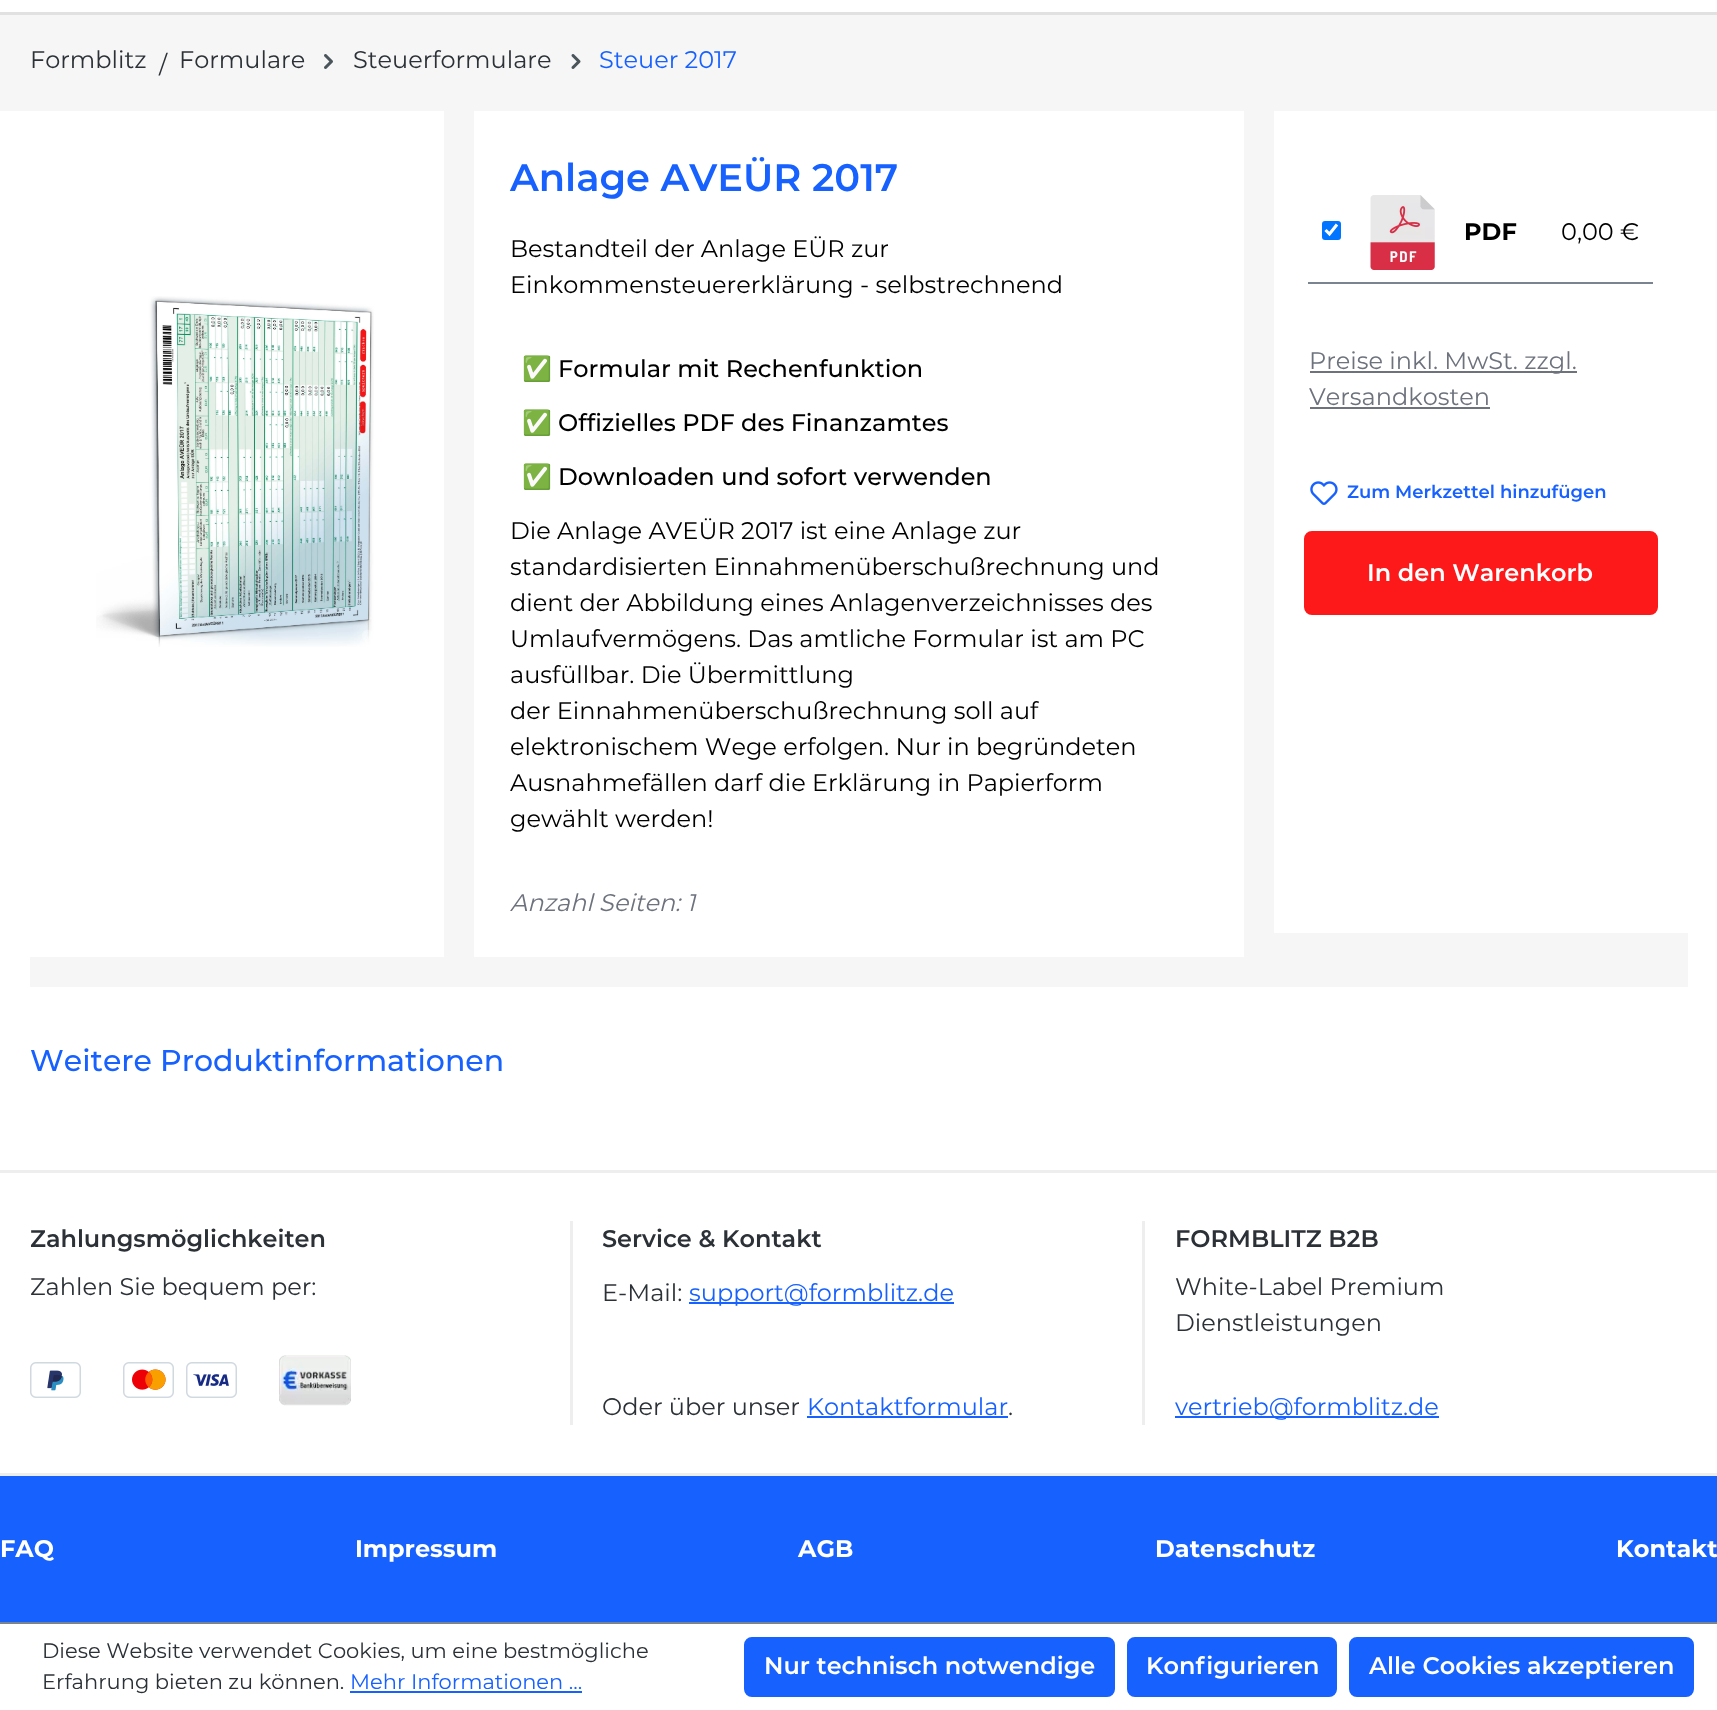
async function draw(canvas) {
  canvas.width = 1717
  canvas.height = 1710
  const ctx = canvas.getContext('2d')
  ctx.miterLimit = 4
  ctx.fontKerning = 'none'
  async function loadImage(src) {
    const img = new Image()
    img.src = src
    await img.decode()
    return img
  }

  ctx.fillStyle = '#fff'
  ctx.fillRect(0, 0, 1717, 1710)
  ctx.fillStyle = '#e1e1e1'
  ctx.fillRect(0, 12, 1717, 3)
  ctx.fillStyle = '#f6f6f6'
  ctx.fillRect(0, 15, 1717, 96)
  ctx.font = '24px Montserrat'
  ctx.fillStyle = '#2b3136'
  ctx.fillText('Formblitz', 30, 68)
  ctx.fillText('/', 159, 73)
  ctx.fillText('Formulare', 179, 68)
  ctx.drawImage(await loadImage('image0.png'), 324, 54, 9, 15)
  ctx.fillText('Steuerformulare', 353, 68)
  ctx.drawImage(await loadImage('image1.png'), 571, 54, 10, 15)
  ctx.fillStyle = '#1761ff'
  ctx.fillText('Steuer 2017', 599, 68)
  ctx.fillStyle = '#f6f6f6'
  ctx.fillRect(30, 111, 1658, 876)
  ctx.fillStyle = '#fff'
  ctx.fillRect(30, 111, 414, 846)
  ctx.drawImage(await loadImage('image2.png'), 96, 296, 278, 351)
  ctx.fillRect(474, 111, 770, 846)
  ctx.font = '600 38.4px Montserrat'
  ctx.fillStyle = '#1761ff'
  ctx.fillText('Anlage AVEÜR 2017', 510, 191)
  ctx.font = '24px Montserrat'
  ctx.fillStyle = '#000'
  ctx.fillText('Bestandteil der Anlage EÜR zur', 510, 257)
  ctx.fillText('Einkommensteuererklärung - selbstrechnend', 510, 293)
  ctx.font = '24px Noto Color Emoji'
  ctx.fillText('✅', 522, 377)
  ctx.font = '100 24px Montserrat'
  ctx.fillText('Formular mit Rechenfunktion', 558, 377)
  ctx.font = '24px Noto Color Emoji'
  ctx.fillText('✅', 522, 431)
  ctx.font = '100 24px Montserrat'
  ctx.fillText('Offizielles PDF des Finanzamtes', 558, 431)
  ctx.font = '24px Noto Color Emoji'
  ctx.fillText('✅', 522, 485)
  ctx.font = '100 24px Montserrat'
  ctx.fillText('Downloaden und sofort verwenden', 558, 485)
  ctx.font = '24px Montserrat'
  ctx.fillText('Die Anlage AVEÜR 2017 ist eine Anlage zur', 510, 539)
  ctx.fillText('standardisierten Einnahmenüberschußrechnung und', 510, 575)
  ctx.fillText('dient der Abbildung eines Anlagenverzeichnisses des', 510, 611)
  ctx.fillText('Umlaufvermögens. Das amtliche Formular ist am PC', 510, 647)
  ctx.fillText('ausfüllbar. Die Übermittlung', 510, 683)
  ctx.fillText('der Einnahmenüberschußrechnung soll auf', 510, 719)
  ctx.fillText('elektronischem Wege erfolgen. Nur in begründeten', 510, 755)
  ctx.fillText('Ausnahmefällen darf die Erklärung in Papierform', 510, 791)
  ctx.fillText('gewählt werden!', 510, 827)
  ctx.font = 'italic 24px Montserrat'
  ctx.fillStyle = '#6d727d'
  ctx.fillText('Anzahl Seiten: 1', 510, 911)
  ctx.fillStyle = '#fff'
  ctx.fillRect(1274, 111, 414, 822)
  ctx.fillStyle = '#0075ff'
  ctx.beginPath()
  ctx.roundRect(1322, 221, 19, 19, 3)
  ctx.fill()
  ctx.beginPath()
  ctx.moveTo(1325.5, 230)
  ctx.lineTo(1329.5, 234)
  ctx.lineTo(1337, 224.5)
  ctx.strokeStyle = '#fff'
  ctx.lineWidth = 3.1
  ctx.stroke()
  ctx.drawImage(await loadImage('image3.png'), 1370, 195, 65, 75)
  ctx.font = 'bold 24px Montserrat'
  ctx.fillStyle = '#000'
  ctx.fillText('PDF', 1464, 240)
  ctx.fillStyle = '#798490'
  ctx.fillRect(1308, 282, 345, 2)
  ctx.font = '24px Montserrat'
  ctx.fillStyle = '#000'
  ctx.fillText('0,00 €', 1561, 240)
  ctx.fillStyle = '#6d727d'
  ctx.fillRect(1310, 371, 267, 2)
  ctx.fillText('Preise inkl. MwSt. zzgl.', 1309, 369)
  ctx.fillText('Versandkosten', 1309, 405)
  ctx.fillRect(1310, 407, 180, 2)
  ctx.drawImage(await loadImage('image4.png'), 1310, 481, 28, 24)
  ctx.font = '600 18px Montserrat'
  ctx.fillStyle = '#1761ff'
  ctx.fillText('Zum Merkzettel hinzufügen', 1347, 498)
  ctx.fillStyle = '#fd181a'
  ctx.beginPath()
  ctx.roundRect(1305, 532, 352, 82, 7)
  ctx.fill()
  ctx.strokeStyle = '#fd181a'
  ctx.lineWidth = 2
  ctx.stroke()
  ctx.font = '600 24px Montserrat'
  ctx.fillStyle = '#fff'
  ctx.fillText('In den Warenkorb', 1367, 581)
  ctx.font = '100 30px Montserrat'
  ctx.fillStyle = '#1761ff'
  ctx.fillText('Weitere Produktinformationen', 30, 1071)
  ctx.fillStyle = '#eee'
  ctx.fillRect(0, 1170, 1717, 3)
  ctx.fillRect(570, 1221, 3, 204)
  ctx.font = '600 24px Montserrat'
  ctx.fillStyle = '#2b3136'
  ctx.fillText('Zahlungsmöglichkeiten', 30, 1247)
  ctx.font = '24px Montserrat'
  ctx.fillText('Zahlen Sie bequem per:', 30, 1295)
  ctx.drawImage(await loadImage('image5.png'), 30, 1362, 51, 36)
  ctx.drawImage(await loadImage('image6.png'), 123, 1362, 114, 36)
  ctx.drawImage(await loadImage('image7.png'), 279, 1355, 72, 51)
  ctx.fillStyle = '#eee'
  ctx.fillRect(1142, 1221, 3, 204)
  ctx.font = '600 24px Montserrat'
  ctx.fillStyle = '#2b3136'
  ctx.fillText('Service & Kontakt', 602, 1247)
  ctx.font = '24px Montserrat'
  ctx.fillText('E-Mail:', 602, 1301)
  ctx.fillStyle = '#1761ff'
  ctx.fillRect(689, 1302, 265, 2)
  ctx.fillText('support@formblitz.de', 689, 1301)
  ctx.fillStyle = '#2b3136'
  ctx.fillText('Oder über unser', 602, 1415)
  ctx.fillStyle = '#1761ff'
  ctx.fillText('Kontaktformular', 807, 1415)
  ctx.fillRect(807, 1416, 201, 2)
  ctx.fillStyle = '#2b3136'
  ctx.fillText('.', 1008, 1415)
  ctx.font = '600 24px Montserrat'
  ctx.fillText('FORMBLITZ B2B', 1175, 1247)
  ctx.font = '24px Montserrat'
  ctx.fillText('White-Label Premium', 1175, 1295)
  ctx.fillText('Dienstleistungen', 1175, 1331)
  ctx.fillStyle = '#1761ff'
  ctx.fillRect(1175, 1416, 264, 2)
  ctx.fillText('vertrieb@formblitz.de', 1175, 1415)
  ctx.fillRect(0, 1476, 1717, 146)
  ctx.fillStyle = '#eee'
  ctx.fillRect(0, 1473, 1717, 3)
  ctx.font = 'bold 24px Montserrat'
  ctx.fillStyle = '#fff'
  ctx.fillText('FAQ', 0, 1557)
  ctx.fillText('Impressum', 355, 1557)
  ctx.fillText('AGB', 798, 1557)
  ctx.fillText('Datenschutz', 1155, 1557)
  ctx.fillText('Kontakt', 1616, 1557)
  ctx.fillStyle = '#798490'
  ctx.fillRect(0, 1622, 1717, 2)
  ctx.font = '21px Montserrat'
  ctx.fillStyle = '#2b3136'
  ctx.fillText('Diese Website verwendet Cookies, um eine bestmögliche', 42, 1658)
  ctx.fillText('Erfahrung bieten zu können.', 42, 1689)
  ctx.fillStyle = '#1761ff'
  ctx.fillText('Mehr Informationen ...', 350, 1689)
  ctx.fillRect(350, 1691, 232, 2)
  ctx.beginPath()
  ctx.roundRect(745, 1638, 369, 58, 7)
  ctx.fill()
  ctx.strokeStyle = '#1761ff'
  ctx.stroke()
  ctx.font = '600 24px Montserrat'
  ctx.fillStyle = '#fff'
  ctx.fillText('Nur technisch notwendige', 764, 1674)
  ctx.fillStyle = '#1761ff'
  ctx.beginPath()
  ctx.roundRect(1128, 1638, 208, 58, 7)
  ctx.fill()
  ctx.stroke()
  ctx.fillStyle = '#fff'
  ctx.fillText('Konfigurieren', 1146, 1674)
  ctx.fillStyle = '#1761ff'
  ctx.beginPath()
  ctx.roundRect(1350, 1638, 343, 58, 7)
  ctx.fill()
  ctx.stroke()
  ctx.fillStyle = '#fff'
  ctx.fillText('Alle Cookies akzeptieren', 1369, 1674)
}

draw(document.querySelector('canvas'))
